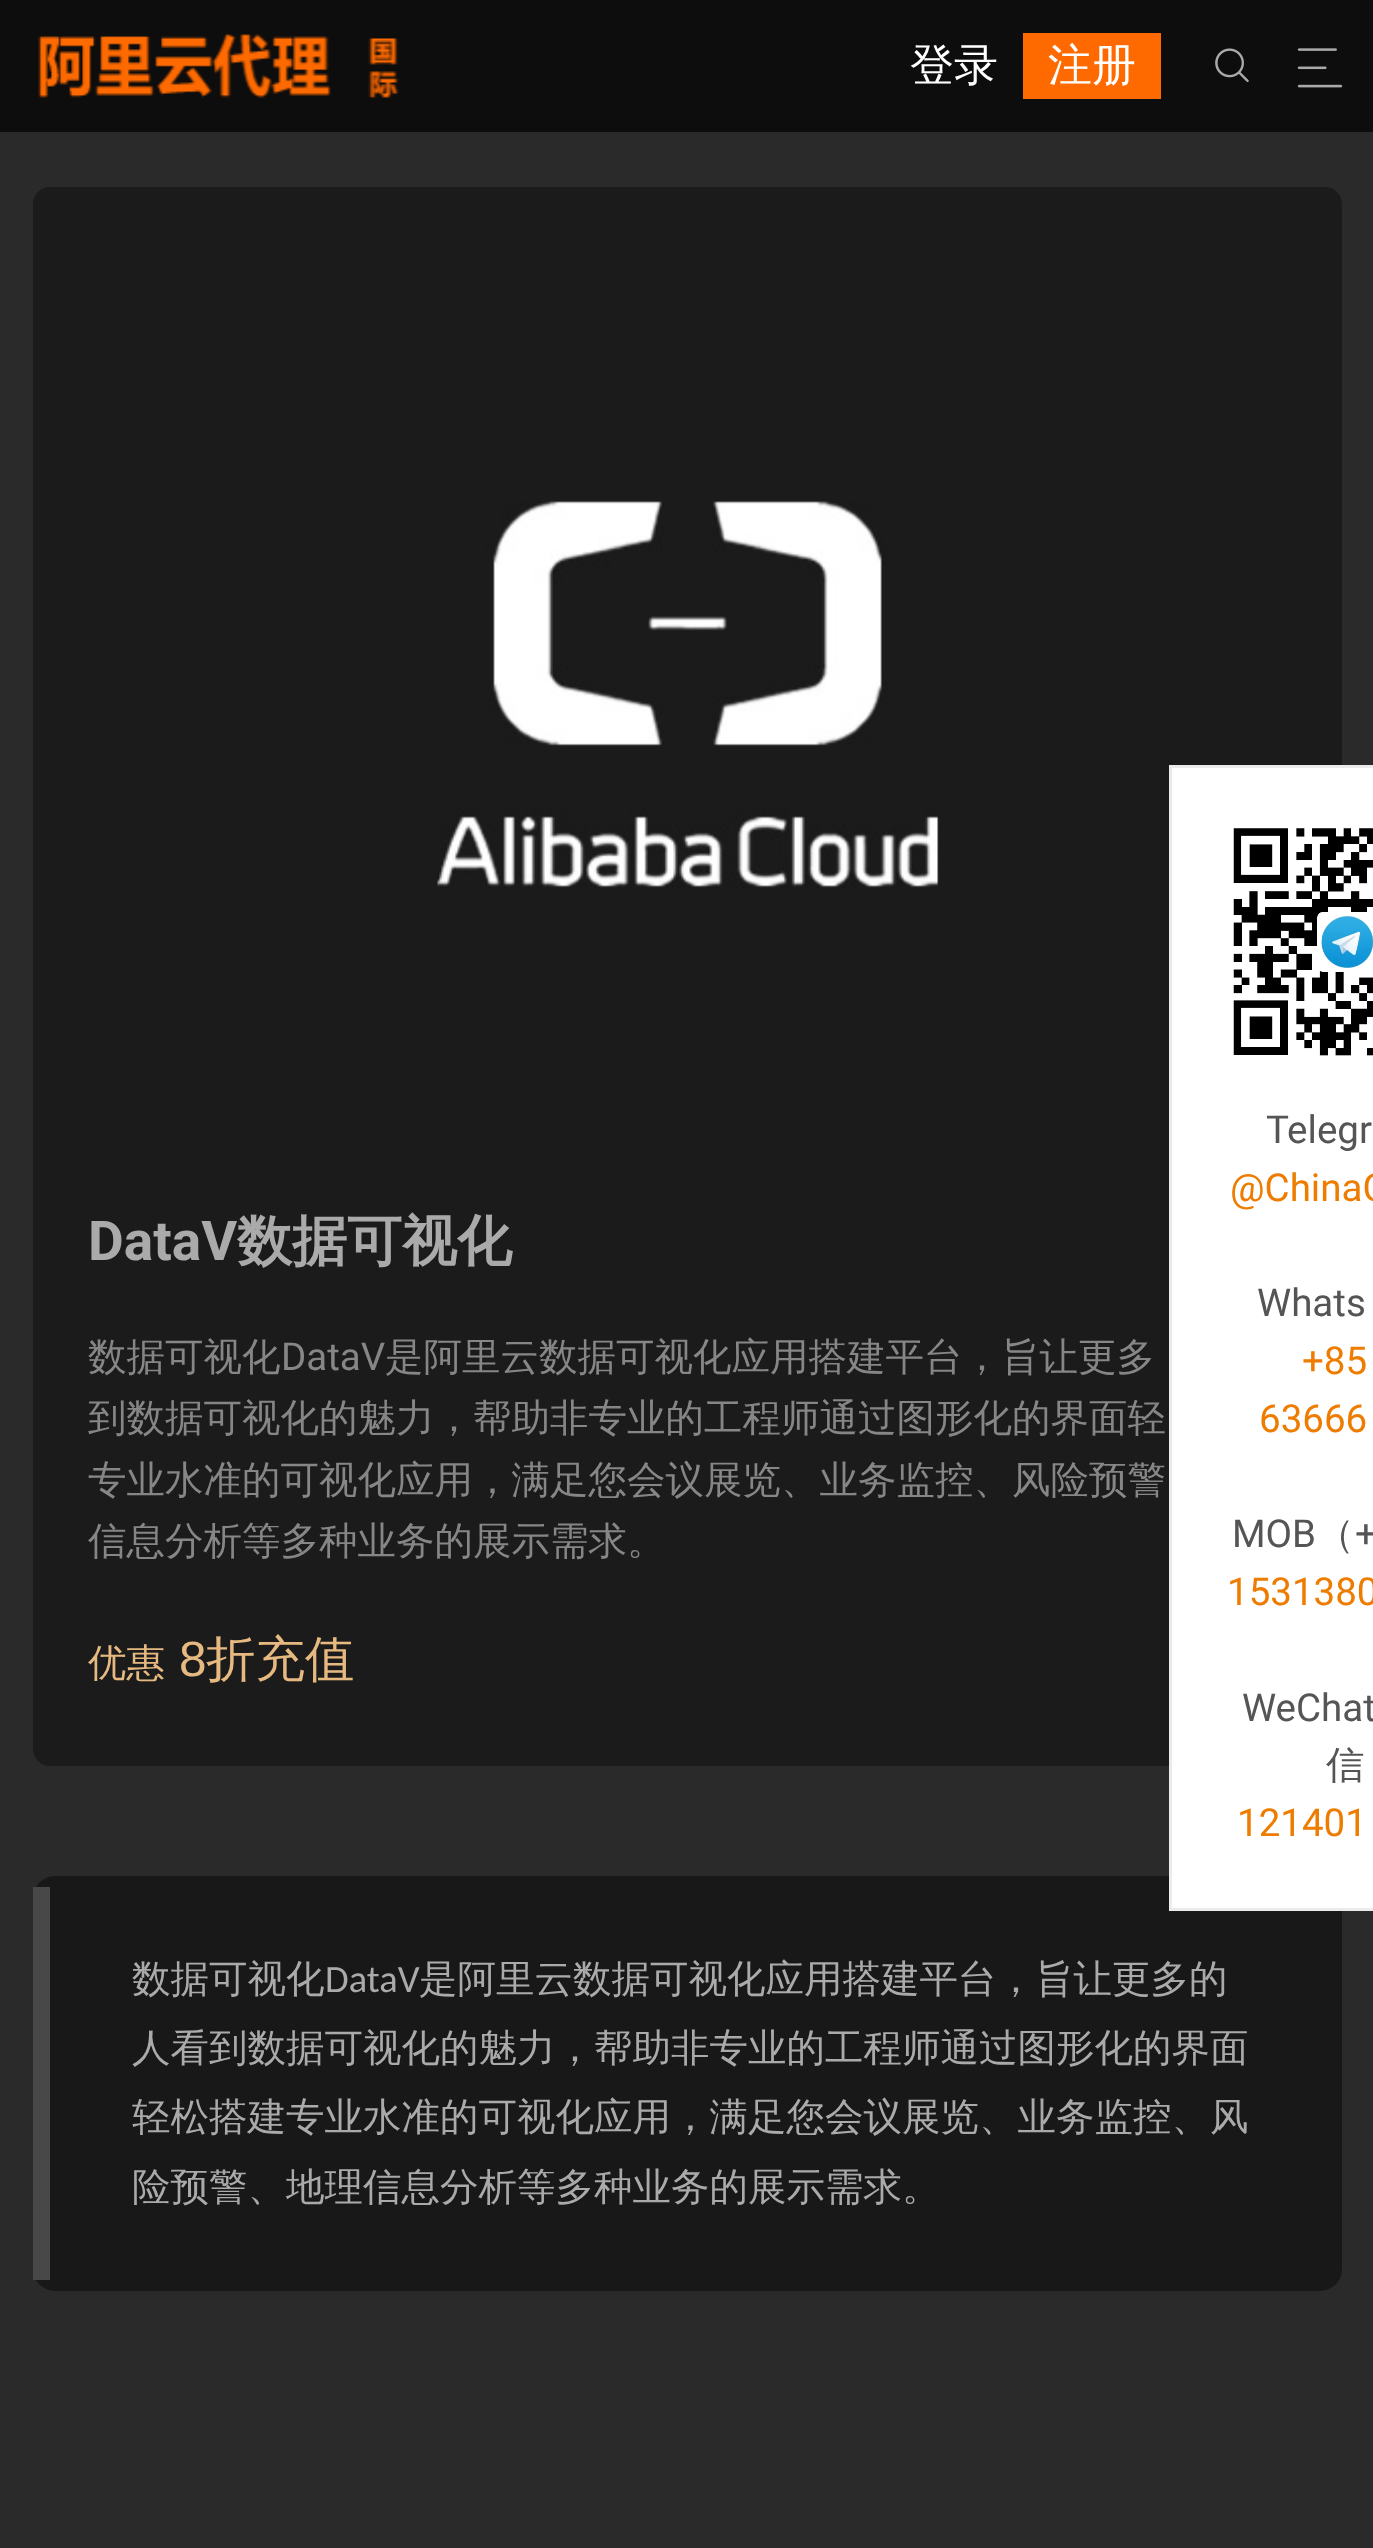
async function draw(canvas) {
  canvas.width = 1373
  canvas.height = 2548
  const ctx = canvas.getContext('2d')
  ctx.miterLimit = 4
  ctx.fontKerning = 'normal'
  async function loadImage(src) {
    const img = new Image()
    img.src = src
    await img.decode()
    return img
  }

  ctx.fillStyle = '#2a2a2a'
  ctx.fillRect(0, 0, 1373, 2548)
  ctx.fillStyle = '#0d0d0d'
  ctx.fillRect(0, 0, 1373, 132)
  ctx.drawImage(await loadImage('image0.png'), 38, 33, 361, 65)
  ctx.font = '500 44px WenQuanYi Zen Hei'
  ctx.fillStyle = '#fff'
  ctx.fillText('登录', 910, 80)
  ctx.fillStyle = '#ff6a00'
  ctx.fillRect(1023, 33, 138, 66)
  ctx.fillStyle = '#fff'
  ctx.fillText('注册', 1048, 80)
  ctx.drawImage(await loadImage('image1.png'), 1297, 48, 46, 40)
  ctx.drawImage(await loadImage('image2.png'), 1215, 48, 34, 35)
  ctx.fillStyle = '#1b1b1b'
  ctx.beginPath()
  ctx.roundRect(33, 187, 1309, 1579, 17)
  ctx.fill()
  ctx.drawImage(await loadImage('image3.png'), 437, 501, 502, 387)
  ctx.font = 'bold 55px Roboto'
  ctx.fillStyle = '#aaa'
  ctx.fillText('DataV', 88, 1260)
  ctx.font = 'bold 55px WenQuanYi Zen Hei'
  ctx.fillText('数据可视化', 237, 1260)
  ctx.font = '500 38.5px WenQuanYi Zen Hei'
  ctx.fillStyle = '#868686'
  ctx.fillText('数据可视化', 88, 1370)
  ctx.font = '38.5px Roboto'
  ctx.fillText('DataV', 281, 1370)
  ctx.font = '500 38.5px WenQuanYi Zen Hei'
  ctx.fillText('是阿里云数据可视化应用搭建平台，旨让更多', 385, 1370)
  ctx.fillText('到数据可视化的魅力，帮助非专业的工程师通过图形化的界面轻', 88, 1431)
  ctx.fillText('专业水准的可视化应用，满足您会议展览、业务监控、风险预警', 88, 1493)
  ctx.fillText('信息分析等多种业务的展示需求。', 88, 1554)
  ctx.fillStyle = '#e6b980'
  ctx.fillText('优惠', 88, 1676)
  ctx.font = '49.5px Liberation Sans'
  ctx.fillText('8', 179, 1676)
  ctx.font = '500 49.5px WenQuanYi Zen Hei'
  ctx.fillText('折充值', 206, 1676)
  ctx.fillStyle = '#181818'
  ctx.beginPath()
  ctx.roundRect(33, 1876, 1309, 415, 22)
  ctx.fill()
  ctx.fillStyle = '#484848'
  ctx.fillRect(33, 1887, 17, 393)
  ctx.font = '500 38.5px WenQuanYi Zen Hei'
  ctx.fillStyle = '#aaa'
  ctx.fillText('数据可视化', 132, 1992)
  ctx.font = '38.5px Carlito'
  ctx.fillText('DataV', 325, 1992)
  ctx.font = '500 38.5px WenQuanYi Zen Hei'
  ctx.fillText('是阿里云数据可视化应用搭建平台，旨让更多的', 419, 1992)
  ctx.fillText('人看到数据可视化的魅力，帮助非专业的工程师通过图形化的界面', 132, 2061)
  ctx.fillText('轻松搭建专业水准的可视化应用，满足您会议展览、业务监控、风', 132, 2130)
  ctx.fillText('险预警、地理信息分析等多种业务的展示需求。', 132, 2200)
  ctx.fillStyle = '#fff'
  ctx.beginPath()
  ctx.rect(1170.5, 766.5, 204, 1143)
  ctx.fill()
  ctx.strokeStyle = '#ebebeb'
  ctx.lineWidth = 3
  ctx.stroke()
  ctx.drawImage(await loadImage('image4.png'), 1233, 828, 140, 228)
  ctx.font = '38.5px Roboto'
  ctx.fillStyle = '#555'
  ctx.fillText('Telegr', 1266, 1143)
  ctx.fillStyle = '#ee7c00'
  ctx.fillText('@ChinaC', 1230, 1201)
  ctx.fillStyle = '#555'
  ctx.fillText('Whats', 1257, 1316)
  ctx.fillStyle = '#ee7c00'
  ctx.fillText('+85', 1302, 1374)
  ctx.fillText('63666', 1259, 1432)
  ctx.fillStyle = '#555'
  ctx.fillText('MOB', 1232, 1547)
  ctx.font = '500 38.5px WenQuanYi Zen Hei'
  ctx.fillText('（', 1316, 1547)
  ctx.font = '38.5px Roboto'
  ctx.fillText('+', 1355, 1547)
  ctx.fillStyle = '#ee7c00'
  ctx.fillText('1531380', 1227, 1605)
  ctx.fillStyle = '#555'
  ctx.fillText('WeChat', 1242, 1721)
  ctx.font = '500 38.5px WenQuanYi Zen Hei'
  ctx.fillText('信', 1326, 1778)
  ctx.font = '38.5px Roboto'
  ctx.fillStyle = '#ee7c00'
  ctx.fillText('121401', 1237, 1836)
}

draw(document.querySelector('canvas'))
